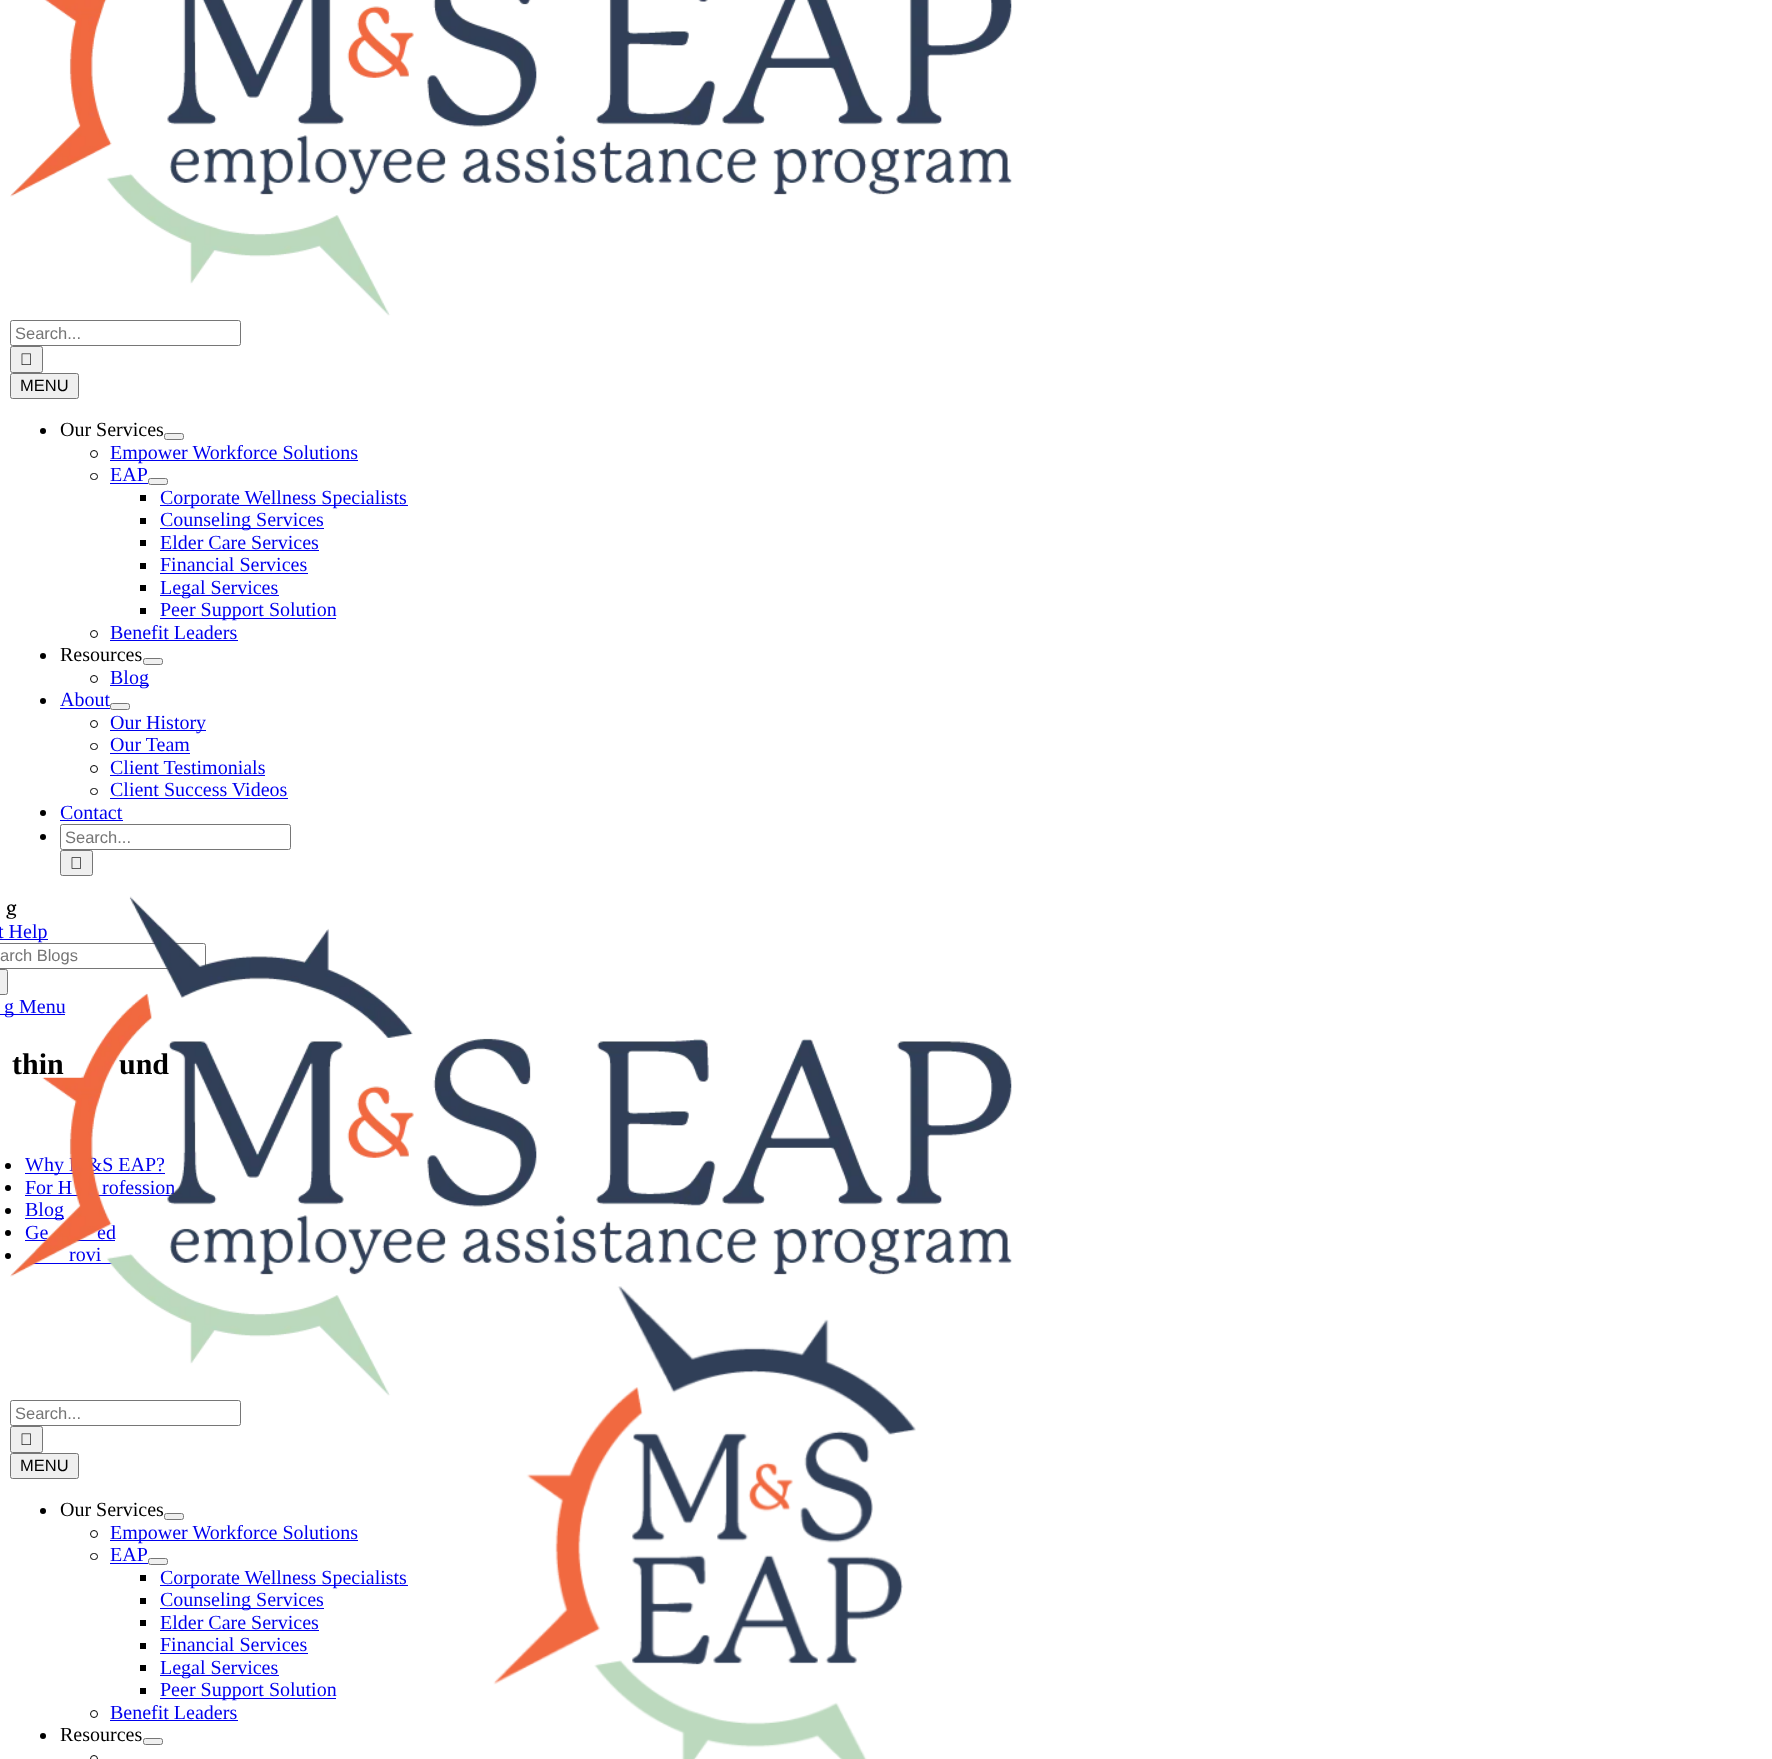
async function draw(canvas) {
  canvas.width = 1772
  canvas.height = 1759
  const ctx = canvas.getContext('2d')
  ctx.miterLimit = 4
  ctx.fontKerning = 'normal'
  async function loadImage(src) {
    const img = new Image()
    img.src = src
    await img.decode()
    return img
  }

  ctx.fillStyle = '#fff'
  ctx.fillRect(0, 0, 1772, 1759)
  ctx.drawImage(await loadImage('image0.png'), 10, 0, 1002, 316)
  ctx.beginPath()
  ctx.roundRect(10.5, 320.5, 230, 25, 2)
  ctx.strokeStyle = '#767676'
  ctx.stroke()
  ctx.font = '16.5px Liberation Sans'
  ctx.fillStyle = '#757575'
  ctx.fillText('Search...', 15, 339)
  ctx.fillStyle = '#efefef'
  ctx.beginPath()
  ctx.roundRect(10.5, 346.5, 32, 26, 2)
  ctx.fill()
  ctx.stroke()
  ctx.drawImage(await loadImage('image1.png'), 21, 353, 10, 12)
  ctx.beginPath()
  ctx.roundRect(10.5, 373.5, 68, 25, 2)
  ctx.fill()
  ctx.stroke()
  ctx.fillStyle = '#000'
  ctx.fillText('MENU', 20, 391)
  ctx.beginPath()
  ctx.arc(43, 431, 3, 0, 2 * Math.PI)
  ctx.fill()
  ctx.font = '20px Liberation Serif'
  ctx.fillText('Our Services', 60, 436)
  ctx.fillStyle = '#efefef'
  ctx.beginPath()
  ctx.roundRect(164.5, 433.5, 19, 6, 2)
  ctx.fill()
  ctx.stroke()
  ctx.beginPath()
  ctx.arc(94, 454, 3.5, 0, 2 * Math.PI)
  ctx.strokeStyle = '#000'
  ctx.stroke()
  ctx.fillStyle = '#00e'
  ctx.fillRect(110, 460, 248, 1)
  ctx.fillText('Empower Workforce Solutions', 110, 459)
  ctx.beginPath()
  ctx.roundRect(90.5, 473.5, 7, 6, 3)
  ctx.stroke()
  ctx.fillText('EAP', 110, 481)
  ctx.fillRect(110, 483, 38, 1)
  ctx.fillStyle = '#efefef'
  ctx.beginPath()
  ctx.roundRect(148.5, 478.5, 19, 6, 2)
  ctx.fill()
  ctx.strokeStyle = '#767676'
  ctx.stroke()
  ctx.fillStyle = '#000'
  ctx.fillRect(140, 495, 6, 6)
  ctx.fillStyle = '#00e'
  ctx.fillRect(160, 505, 248, 1)
  ctx.fillText('Corporate Wellness Specialists', 160, 504)
  ctx.fillStyle = '#000'
  ctx.fillRect(140, 518, 6, 6)
  ctx.fillStyle = '#00e'
  ctx.fillRect(160, 528, 164, 1)
  ctx.fillText('Counseling Services', 160, 526)
  ctx.fillStyle = '#000'
  ctx.fillRect(140, 540, 6, 6)
  ctx.fillStyle = '#00e'
  ctx.fillText('Elder Care Services', 160, 549)
  ctx.fillRect(160, 550, 159, 1)
  ctx.fillStyle = '#000'
  ctx.fillRect(140, 563, 6, 6)
  ctx.fillStyle = '#00e'
  ctx.fillText('Financial Services', 160, 571)
  ctx.fillRect(160, 573, 148, 1)
  ctx.fillStyle = '#000'
  ctx.fillRect(140, 585, 6, 6)
  ctx.fillStyle = '#00e'
  ctx.fillRect(160, 595, 119, 1)
  ctx.fillText('Legal Services', 160, 594)
  ctx.fillStyle = '#000'
  ctx.fillRect(140, 608, 6, 6)
  ctx.fillStyle = '#00e'
  ctx.fillRect(160, 618, 176, 1)
  ctx.fillText('Peer Support Solution', 160, 616)
  ctx.beginPath()
  ctx.arc(94, 634, 3.5, 0, 2 * Math.PI)
  ctx.strokeStyle = '#000'
  ctx.stroke()
  ctx.fillText('Benefit Leaders', 110, 639)
  ctx.fillRect(110, 640, 128, 1)
  ctx.fillStyle = '#000'
  ctx.beginPath()
  ctx.arc(43, 656, 3, 0, 2 * Math.PI)
  ctx.fill()
  ctx.fillText('Resources', 60, 661)
  ctx.fillStyle = '#efefef'
  ctx.beginPath()
  ctx.roundRect(143.5, 658.5, 19, 6, 2)
  ctx.fill()
  ctx.strokeStyle = '#767676'
  ctx.stroke()
  ctx.beginPath()
  ctx.arc(94, 679, 3.5, 0, 2 * Math.PI)
  ctx.strokeStyle = '#000'
  ctx.stroke()
  ctx.fillStyle = '#00e'
  ctx.fillRect(110, 685, 39, 1)
  ctx.fillText('Blog', 110, 684)
  ctx.fillStyle = '#000'
  ctx.beginPath()
  ctx.arc(43, 701, 3, 0, 2 * Math.PI)
  ctx.fill()
  ctx.fillStyle = '#00e'
  ctx.fillText('About', 60, 706)
  ctx.fillRect(60, 708, 50, 1)
  ctx.fillStyle = '#efefef'
  ctx.beginPath()
  ctx.roundRect(110.5, 703.5, 19, 6, 2)
  ctx.fill()
  ctx.strokeStyle = '#767676'
  ctx.stroke()
  ctx.beginPath()
  ctx.arc(94, 724, 3.5, 0, 2 * Math.PI)
  ctx.strokeStyle = '#000'
  ctx.stroke()
  ctx.fillStyle = '#00e'
  ctx.fillRect(110, 730, 96, 1)
  ctx.fillText('Our History', 110, 729)
  ctx.beginPath()
  ctx.roundRect(90.5, 743.5, 7, 6, 3)
  ctx.stroke()
  ctx.fillText('Our Team', 110, 751)
  ctx.fillRect(110, 753, 80, 1)
  ctx.beginPath()
  ctx.arc(94, 769, 3.5, 0, 2 * Math.PI)
  ctx.stroke()
  ctx.fillText('Client Testimonials', 110, 774)
  ctx.fillRect(110, 775, 155, 1)
  ctx.beginPath()
  ctx.roundRect(90.5, 788.5, 7, 6, 3)
  ctx.stroke()
  ctx.fillText('Client Success Videos', 110, 796)
  ctx.fillRect(110, 798, 178, 1)
  ctx.fillStyle = '#000'
  ctx.beginPath()
  ctx.arc(43, 813, 3, 0, 2 * Math.PI)
  ctx.fill()
  ctx.fillStyle = '#00e'
  ctx.fillText('Contact', 60, 819)
  ctx.fillRect(60, 820, 63, 1)
  ctx.fillStyle = '#000'
  ctx.beginPath()
  ctx.arc(43, 837, 3, 0, 2 * Math.PI)
  ctx.fill()
  ctx.beginPath()
  ctx.roundRect(60.5, 824.5, 230, 25, 2)
  ctx.strokeStyle = '#767676'
  ctx.stroke()
  ctx.font = '16.5px Liberation Sans'
  ctx.fillStyle = '#757575'
  ctx.fillText('Search...', 65, 843)
  ctx.fillStyle = '#efefef'
  ctx.beginPath()
  ctx.roundRect(60.5, 850.5, 32, 25, 2)
  ctx.fill()
  ctx.stroke()
  ctx.drawImage(await loadImage('image2.png'), 71, 857, 10, 12)
  ctx.font = '500 20px "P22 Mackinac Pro"'
  ctx.fillStyle = '#000'
  ctx.fillText('g', 6, 915)
  ctx.fillStyle = '#00e'
  ctx.fillRect(0, 939, 48, 1)
  ctx.font = '20px Liberation Serif'
  ctx.fillText('t Help', -2, 938)
  ctx.beginPath()
  ctx.roundRect(-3.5, 943.5, 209, 25, 2)
  ctx.stroke()
  ctx.font = '16.5px Liberation Sans'
  ctx.fillStyle = '#757575'
  ctx.fillText('arch Blogs', 0, 961)
  ctx.fillStyle = '#00e'
  ctx.fillRect(0, 1014, 65, 1)
  ctx.font = '20px Liberation Serif'
  ctx.fillText('g Menu', 4, 1013)
  ctx.font = 'bold 30px Liberation Serif'
  ctx.fillStyle = '#000'
  ctx.fillText('thin', 12, 1074)
  ctx.fillText('und', 119, 1074)
  ctx.beginPath()
  ctx.arc(8, 1166, 3, 0, 2 * Math.PI)
  ctx.fill()
  ctx.fillStyle = '#00e'
  ctx.fillRect(25, 1173, 140, 1)
  ctx.font = '20px Liberation Serif'
  ctx.fillText('Why M&S EAP?', 25, 1171)
  ctx.fillStyle = '#000'
  ctx.beginPath()
  ctx.arc(8, 1188, 3, 0, 2 * Math.PI)
  ctx.fill()
  ctx.fillStyle = '#00e'
  ctx.fillText('For H', 25, 1194)
  ctx.fillRect(25, 1195, 148, 1)
  ctx.fillText('rofession', 102, 1194)
  ctx.fillStyle = '#000'
  ctx.beginPath()
  ctx.arc(8, 1211, 3, 0, 2 * Math.PI)
  ctx.fill()
  ctx.fillStyle = '#00e'
  ctx.fillRect(25, 1218, 39, 1)
  ctx.fillText('Blog', 25, 1216)
  ctx.fillStyle = '#000'
  ctx.beginPath()
  ctx.arc(8, 1233, 3, 0, 2 * Math.PI)
  ctx.fill()
  ctx.fillStyle = '#00e'
  ctx.fillText('Ge', 25, 1239)
  ctx.fillRect(25, 1240, 90, 1)
  ctx.fillText('ed', 97, 1239)
  ctx.fillStyle = '#000'
  ctx.beginPath()
  ctx.arc(8, 1256, 3, 0, 2 * Math.PI)
  ctx.fill()
  ctx.fillStyle = '#00e'
  ctx.fillText('rovi', 69, 1261)
  ctx.fillRect(25, 1263, 88, 1)
  ctx.drawImage(await loadImage('image4.png'), 493, 1286, 423, 473)
  ctx.drawImage(await loadImage('image3.png'), 10, 896, 1002, 500)
  ctx.beginPath()
  ctx.roundRect(10.5, 1400.5, 230, 25, 2)
  ctx.stroke()
  ctx.font = '16.5px Liberation Sans'
  ctx.fillStyle = '#757575'
  ctx.fillText('Search...', 15, 1419)
  ctx.fillStyle = '#efefef'
  ctx.beginPath()
  ctx.roundRect(10.5, 1426.5, 32, 26, 2)
  ctx.fill()
  ctx.stroke()
  ctx.drawImage(await loadImage('image1.png'), 21, 1433, 10, 12)
  ctx.beginPath()
  ctx.roundRect(10.5, 1453.5, 68, 25, 2)
  ctx.fill()
  ctx.stroke()
  ctx.fillStyle = '#000'
  ctx.fillText('MENU', 20, 1471)
  ctx.beginPath()
  ctx.arc(43, 1511, 3, 0, 2 * Math.PI)
  ctx.fill()
  ctx.font = '20px Liberation Serif'
  ctx.fillText('Our Services', 60, 1516)
  ctx.fillStyle = '#efefef'
  ctx.beginPath()
  ctx.roundRect(164.5, 1513.5, 19, 6, 2)
  ctx.fill()
  ctx.stroke()
  ctx.beginPath()
  ctx.arc(94, 1534, 3.5, 0, 2 * Math.PI)
  ctx.strokeStyle = '#000'
  ctx.stroke()
  ctx.fillStyle = '#00e'
  ctx.fillRect(110, 1540, 248, 1)
  ctx.fillText('Empower Workforce Solutions', 110, 1539)
  ctx.beginPath()
  ctx.roundRect(90.5, 1553.5, 7, 6, 3)
  ctx.stroke()
  ctx.fillText('EAP', 110, 1561)
  ctx.fillRect(110, 1563, 38, 1)
  ctx.fillStyle = '#efefef'
  ctx.beginPath()
  ctx.roundRect(148.5, 1558.5, 19, 6, 2)
  ctx.fill()
  ctx.strokeStyle = '#767676'
  ctx.stroke()
  ctx.fillStyle = '#000'
  ctx.fillRect(140, 1575, 6, 6)
  ctx.fillStyle = '#00e'
  ctx.fillRect(160, 1585, 248, 1)
  ctx.fillText('Corporate Wellness Specialists', 160, 1584)
  ctx.fillStyle = '#000'
  ctx.fillRect(140, 1598, 6, 6)
  ctx.fillStyle = '#00e'
  ctx.fillRect(160, 1608, 164, 1)
  ctx.fillText('Counseling Services', 160, 1606)
  ctx.fillStyle = '#000'
  ctx.fillRect(140, 1620, 6, 6)
  ctx.fillStyle = '#00e'
  ctx.fillText('Elder Care Services', 160, 1629)
  ctx.fillRect(160, 1630, 159, 1)
  ctx.fillStyle = '#000'
  ctx.fillRect(140, 1643, 6, 6)
  ctx.fillStyle = '#00e'
  ctx.fillText('Financial Services', 160, 1651)
  ctx.fillRect(160, 1653, 148, 1)
  ctx.fillStyle = '#000'
  ctx.fillRect(140, 1665, 6, 6)
  ctx.fillStyle = '#00e'
  ctx.fillRect(160, 1675, 119, 1)
  ctx.fillText('Legal Services', 160, 1674)
  ctx.fillStyle = '#000'
  ctx.fillRect(140, 1688, 6, 6)
  ctx.fillStyle = '#00e'
  ctx.fillRect(160, 1698, 176, 1)
  ctx.fillText('Peer Support Solution', 160, 1696)
  ctx.beginPath()
  ctx.arc(94, 1714, 3.5, 0, 2 * Math.PI)
  ctx.strokeStyle = '#000'
  ctx.stroke()
  ctx.fillText('Benefit Leaders', 110, 1719)
  ctx.fillRect(110, 1720, 128, 1)
  ctx.fillStyle = '#000'
  ctx.beginPath()
  ctx.arc(43, 1736, 3, 0, 2 * Math.PI)
  ctx.fill()
  ctx.fillText('Resources', 60, 1741)
  ctx.fillStyle = '#efefef'
  ctx.beginPath()
  ctx.roundRect(143.5, 1738.5, 19, 6, 2)
  ctx.fill()
  ctx.strokeStyle = '#767676'
  ctx.stroke()
  ctx.beginPath()
  ctx.arc(94, 1759, 3.5, 0, 2 * Math.PI)
  ctx.strokeStyle = '#000'
  ctx.stroke()
  ctx.beginPath()
  ctx.roundRect(-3.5, 969.5, 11, 25, 2)
  ctx.fill()
  ctx.strokeStyle = '#767676'
  ctx.stroke()
}

draw(document.querySelector('canvas'))
